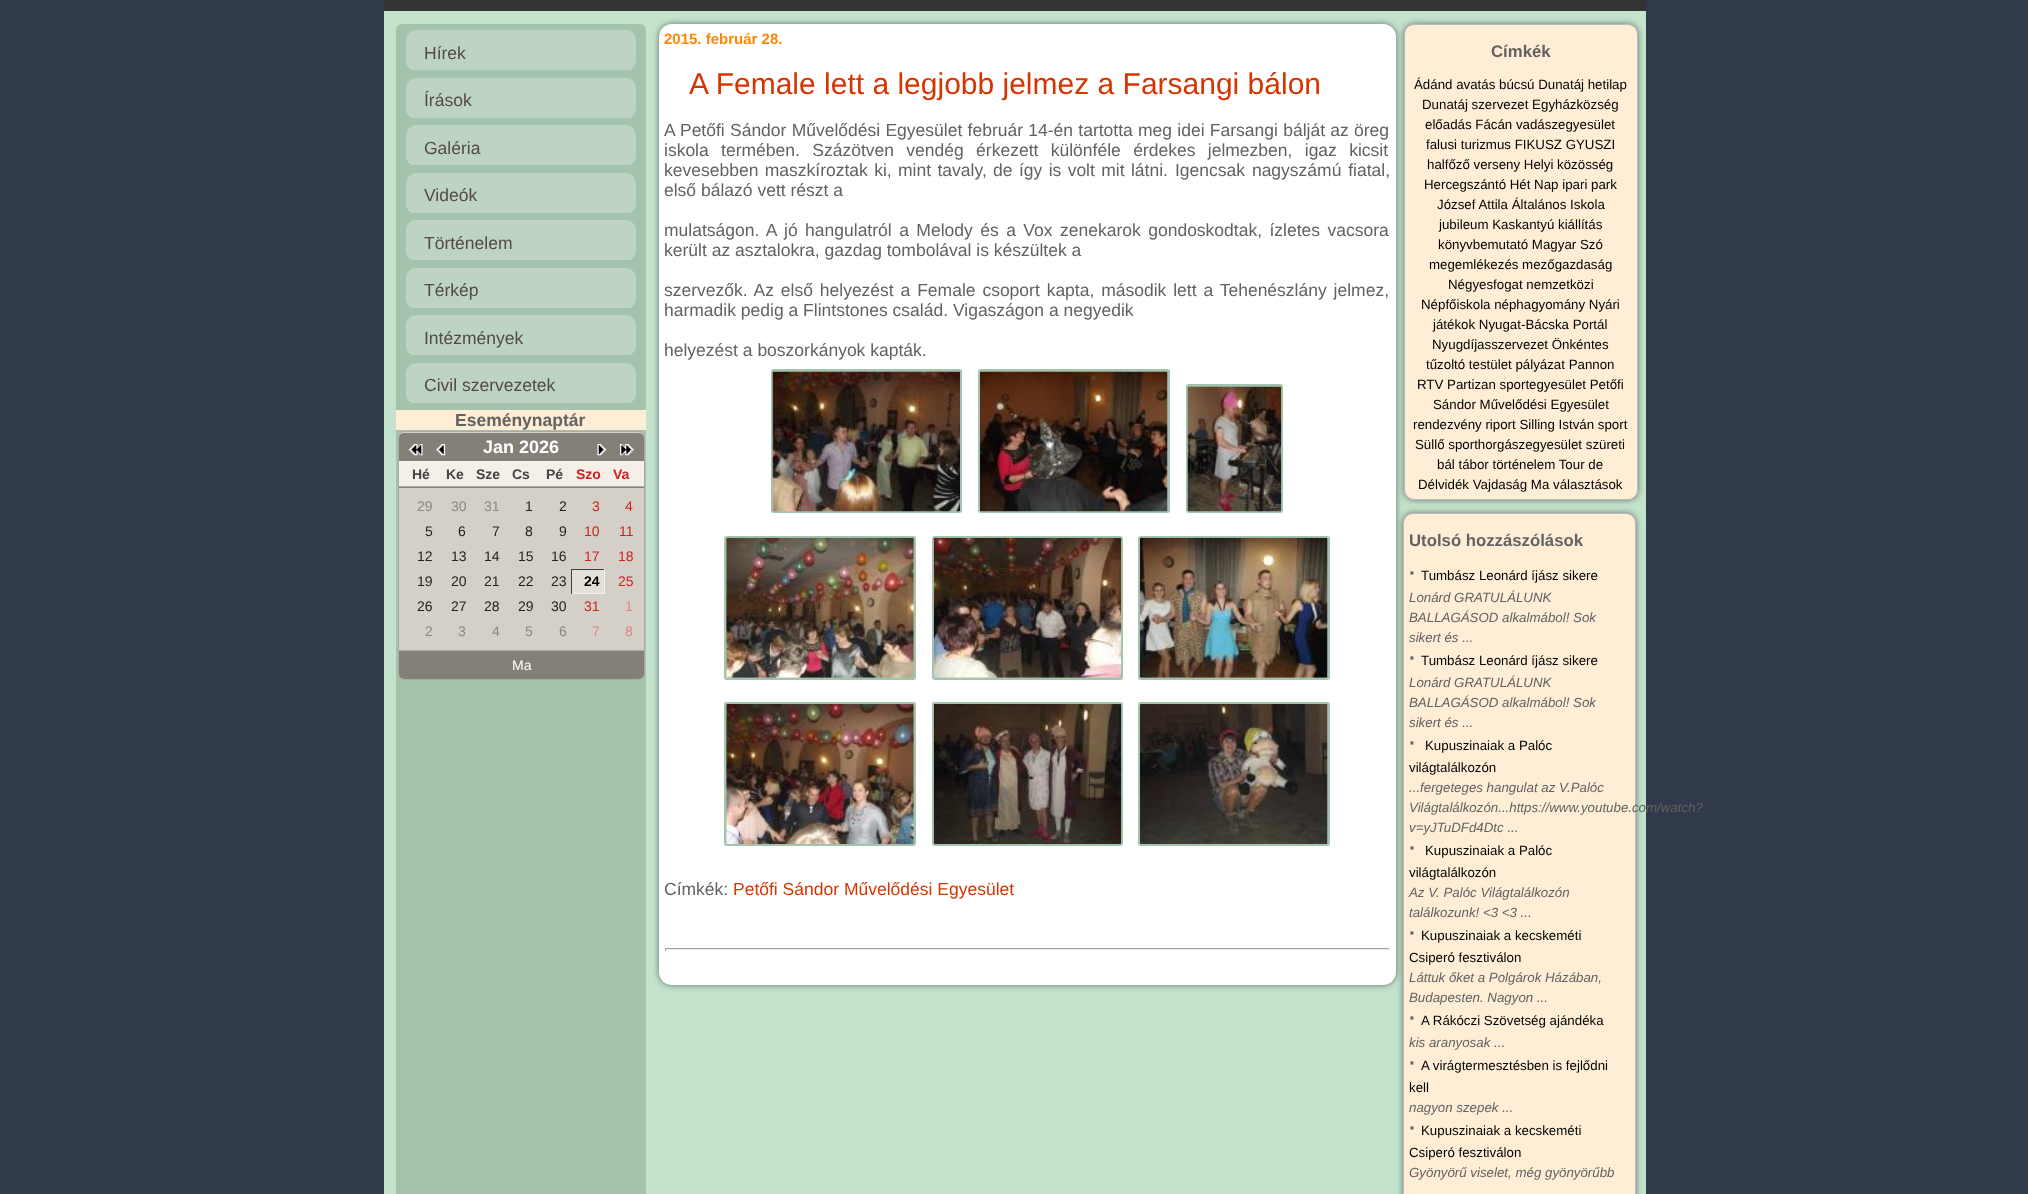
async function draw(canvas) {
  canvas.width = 2028
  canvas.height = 1194
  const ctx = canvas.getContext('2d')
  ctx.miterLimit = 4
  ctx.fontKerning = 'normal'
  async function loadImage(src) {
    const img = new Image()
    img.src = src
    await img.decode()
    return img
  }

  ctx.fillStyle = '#313a4b'
  ctx.fillRect(0, 0, 2028, 1194)
  ctx.fillStyle = '#333'
  ctx.fillRect(384, 0, 1262, 11)
  ctx.fillStyle = '#c4e3cd'
  ctx.fillRect(384, 11, 1262, 1183)
  ctx.fillStyle = '#a4c3ad'
  ctx.beginPath()
  ctx.roundRect(396, 24, 250, 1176, 6)
  ctx.fill()
  ctx.fillStyle = '#bdd3c3'
  ctx.beginPath()
  ctx.roundRect(406, 30, 230, 41, 10)
  ctx.fill()
  ctx.fillStyle = '#a8c1af'
  ctx.fillRect(411, 70, 220, 1)
  ctx.font = '17.5px Liberation Sans'
  ctx.fillStyle = '#544a44'
  ctx.fillText('Hírek', 424, 59)
  ctx.fillStyle = '#bdd3c3'
  ctx.beginPath()
  ctx.roundRect(406, 78, 230, 41, 10)
  ctx.fill()
  ctx.fillStyle = '#a8c1af'
  ctx.fillRect(411, 118, 220, 1)
  ctx.fillStyle = '#544a44'
  ctx.fillText('Írások', 424, 106)
  ctx.fillStyle = '#bdd3c3'
  ctx.beginPath()
  ctx.roundRect(406, 125, 230, 41, 10)
  ctx.fill()
  ctx.fillStyle = '#a8c1af'
  ctx.fillRect(411, 165, 220, 1)
  ctx.fillStyle = '#544a44'
  ctx.fillText('Galéria', 424, 154)
  ctx.fillStyle = '#bdd3c3'
  ctx.beginPath()
  ctx.roundRect(406, 173, 230, 41, 10)
  ctx.fill()
  ctx.fillStyle = '#a8c1af'
  ctx.fillRect(411, 213, 220, 1)
  ctx.fillStyle = '#544a44'
  ctx.fillText('Videók', 424, 201)
  ctx.fillStyle = '#bdd3c3'
  ctx.beginPath()
  ctx.roundRect(406, 220, 230, 41, 10)
  ctx.fill()
  ctx.fillStyle = '#a8c1af'
  ctx.fillRect(411, 260, 220, 1)
  ctx.fillStyle = '#544a44'
  ctx.fillText('Történelem', 424, 249)
  ctx.fillStyle = '#bdd3c3'
  ctx.beginPath()
  ctx.roundRect(406, 268, 230, 41, 10)
  ctx.fill()
  ctx.fillStyle = '#a8c1af'
  ctx.fillRect(411, 308, 220, 1)
  ctx.fillStyle = '#544a44'
  ctx.fillText('Térkép', 424, 296)
  ctx.fillStyle = '#bdd3c3'
  ctx.beginPath()
  ctx.roundRect(406, 315, 230, 41, 10)
  ctx.fill()
  ctx.fillStyle = '#a8c1af'
  ctx.fillRect(411, 355, 220, 1)
  ctx.fillStyle = '#544a44'
  ctx.fillText('Intézmények', 424, 344)
  ctx.fillStyle = '#bdd3c3'
  ctx.beginPath()
  ctx.roundRect(406, 363, 230, 41, 10)
  ctx.fill()
  ctx.fillStyle = '#a8c1af'
  ctx.fillRect(411, 403, 220, 1)
  ctx.fillStyle = '#544a44'
  ctx.fillText('Civil szervezetek', 424, 391)
  ctx.fillStyle = '#ffeed5'
  ctx.fillRect(396, 410, 250, 20)
  ctx.font = 'bold 17.5px Liberation Sans'
  ctx.fillStyle = '#626262'
  ctx.fillText('Eseménynaptár', 455, 426)
  ctx.fillStyle = '#d4d0c8'
  ctx.beginPath()
  ctx.roundRect(398.5, 431.5, 246, 248, 5.5)
  ctx.fill()
  ctx.strokeStyle = '#aaa'
  ctx.stroke()
  ctx.fillStyle = '#848078'
  ctx.beginPath()
  ctx.roundRect(399, 433, 245, 55, [5, 5, 0, 0])
  ctx.fill()
  ctx.fillStyle = '#aaa'
  ctx.fillRect(399, 486, 245, 1)
  ctx.drawImage(await loadImage('image0.png'), 408, 444, 15, 12)
  ctx.drawImage(await loadImage('image1.png'), 436, 444, 10, 12)
  ctx.font = 'bold 18px Liberation Sans'
  ctx.fillStyle = '#fff'
  ctx.fillText('Jan 2026', 483, 453)
  ctx.drawImage(await loadImage('image2.png'), 597, 444, 10, 12)
  ctx.drawImage(await loadImage('image3.png'), 619, 444, 15, 12)
  ctx.fillStyle = '#f4f0e8'
  ctx.fillRect(399, 461, 245, 25)
  ctx.font = 'bold 14px Liberation Sans'
  ctx.fillStyle = '#444'
  ctx.fillText('Hé', 412, 479)
  ctx.fillText('Ke', 446, 479)
  ctx.fillText('Sze', 476, 479)
  ctx.fillText('Cs', 512, 479)
  ctx.fillText('Pé', 546, 479)
  ctx.fillStyle = '#c22'
  ctx.fillText('Szo', 576, 479)
  ctx.fillText('Va', 613, 479)
  ctx.font = '14px Liberation Sans'
  ctx.fillStyle = '#888'
  ctx.fillText('29', 417, 511)
  ctx.fillText('30', 451, 511)
  ctx.fillText('31', 484, 511)
  ctx.fillStyle = '#222'
  ctx.fillText('1', 525, 511)
  ctx.fillText('2', 559, 511)
  ctx.fillStyle = '#c22'
  ctx.fillText('3', 592, 511)
  ctx.fillText('4', 625, 511)
  ctx.fillStyle = '#222'
  ctx.fillText('5', 425, 536)
  ctx.fillText('6', 458, 536)
  ctx.fillText('7', 492, 536)
  ctx.fillText('8', 525, 536)
  ctx.fillText('9', 559, 536)
  ctx.fillStyle = '#c22'
  ctx.fillText('10', 584, 536)
  ctx.fillText('11', 619, 536)
  ctx.fillStyle = '#222'
  ctx.fillText('12', 417, 561)
  ctx.fillText('13', 451, 561)
  ctx.fillText('14', 484, 561)
  ctx.fillText('15', 518, 561)
  ctx.fillText('16', 551, 561)
  ctx.fillStyle = '#c22'
  ctx.fillText('17', 584, 561)
  ctx.fillText('18', 618, 561)
  ctx.fillStyle = '#222'
  ctx.fillText('19', 417, 586)
  ctx.fillText('20', 451, 586)
  ctx.fillText('21', 484, 586)
  ctx.fillText('22', 518, 586)
  ctx.fillText('23', 551, 586)
  ctx.fillStyle = '#e4e0d8'
  ctx.fillRect(572, 570, 32, 23)
  ctx.fillStyle = '#444038'
  ctx.fillRect(571, 569, 34, 1)
  ctx.fillStyle = '#f4f0e8'
  ctx.fillRect(604, 569, 1, 25)
  ctx.fillRect(571, 593, 34, 1)
  ctx.fillStyle = '#444038'
  ctx.fillRect(571, 569, 1, 25)
  ctx.font = 'bold 14px Liberation Sans'
  ctx.fillStyle = '#000'
  ctx.fillText('24', 584, 586)
  ctx.font = '14px Liberation Sans'
  ctx.fillStyle = '#c22'
  ctx.fillText('25', 618, 586)
  ctx.fillStyle = '#222'
  ctx.fillText('26', 417, 611)
  ctx.fillText('27', 451, 611)
  ctx.fillText('28', 484, 611)
  ctx.fillText('29', 518, 611)
  ctx.fillText('30', 551, 611)
  ctx.fillStyle = '#c22'
  ctx.fillText('31', 584, 611)
  ctx.fillStyle = '#d88'
  ctx.fillText('1', 625, 611)
  ctx.fillStyle = '#888'
  ctx.fillText('2', 425, 636)
  ctx.fillText('3', 458, 636)
  ctx.fillText('4', 492, 636)
  ctx.fillText('5', 525, 636)
  ctx.fillText('6', 559, 636)
  ctx.fillStyle = '#d88'
  ctx.fillText('7', 592, 636)
  ctx.fillText('8', 625, 636)
  ctx.fillStyle = '#848078'
  ctx.beginPath()
  ctx.roundRect(399, 650, 245, 29, [0, 0, 5, 5])
  ctx.fill()
  ctx.fillStyle = '#aaa'
  ctx.fillRect(399, 650, 245, 1)
  ctx.fillStyle = '#fff'
  ctx.fillText('Ma', 512, 670)
  ctx.fillStyle = '#00000080'
  ctx.filter = 'blur(3px)'
  ctx.beginPath()
  ctx.roundRect(659, 24, 737, 961, 13)
  ctx.fill()
  ctx.filter = 'none'
  ctx.fillStyle = '#fff'
  ctx.beginPath()
  ctx.roundRect(659, 24, 737, 961, 13)
  ctx.fill()
  ctx.font = 'bold 15px Liberation Sans'
  ctx.fillStyle = '#ff8704'
  ctx.fillText('2015. február 28.', 664, 44)
  ctx.font = '30px Liberation Sans'
  ctx.fillStyle = '#d53600'
  ctx.fillText('A Female lett a legjobb jelmez a Farsangi bálon', 689, 94)
  ctx.wordSpacing = '0.4px'
  ctx.font = '17.5px Liberation Sans'
  ctx.fillStyle = '#626262'
  ctx.fillText('A Petőfi Sándor Művelődési Egyesület február 14-én tartotta meg idei Farsangi bálját az öreg', 664, 136)
  ctx.wordSpacing = '7.5px'
  ctx.fillText('iskola termében. Százötven vendég érkezett különféle érdekes jelmezben, igaz kicsit', 664, 156)
  ctx.wordSpacing = '1.5px'
  ctx.fillText('kevesebben maszkíroztak ki, mint tavaly, de így is volt mit látni.', 664, 176)
  ctx.wordSpacing = '2px'
  ctx.fillText('Igencsak nagyszámú fiatal,', 1175, 176)
  ctx.wordSpacing = '0px'
  ctx.fillText('első bálazó vett részt a', 664, 196)
  ctx.wordSpacing = '2.6px'
  ctx.fillText('mulatságon. A jó hangulatról a Melody és a Vox zenekarok gondoskodtak, ízletes vacsora', 664, 236)
  ctx.wordSpacing = '0px'
  ctx.fillText('került az asztalokra, gazdag tombolával is készültek a', 664, 256)
  ctx.wordSpacing = '2px'
  ctx.fillText('szervezők. Az első helyezést a Female csoport kapta, második lett a Tehenészlány jelmez,', 664, 296)
  ctx.wordSpacing = '0px'
  ctx.fillText('harmadik pedig a Flintstones család. Vigaszágon a negyedik', 664, 316)
  ctx.fillText('helyezést a boszorkányok kapták.', 664, 356)
  ctx.fillStyle = '#a4c3ad'
  ctx.beginPath()
  ctx.roundRect(769.5, 367.5, 194, 147, 4.5)
  ctx.fill()
  ctx.strokeStyle = '#fff'
  ctx.lineWidth = 3
  ctx.stroke()
  ctx.beginPath()
  ctx.roundRect(976.5, 367.5, 195, 147, 4.5)
  ctx.fill()
  ctx.stroke()
  ctx.drawImage(await loadImage('image4.png'), 772, 371, 188, 141)
  ctx.drawImage(await loadImage('image5.png'), 980, 371, 188, 141)
  ctx.beginPath()
  ctx.roundRect(1184.5, 382.5, 100, 132, 4.5)
  ctx.fill()
  ctx.stroke()
  ctx.drawImage(await loadImage('image6.png'), 1187, 386, 95, 126)
  ctx.beginPath()
  ctx.roundRect(722.5, 534.5, 195, 147, 4.5)
  ctx.fill()
  ctx.stroke()
  ctx.beginPath()
  ctx.roundRect(930.5, 534.5, 194, 147, 4.5)
  ctx.fill()
  ctx.stroke()
  ctx.beginPath()
  ctx.roundRect(1136.5, 534.5, 195, 147, 4.5)
  ctx.fill()
  ctx.stroke()
  ctx.drawImage(await loadImage('image7.png'), 726, 537, 188, 141)
  ctx.drawImage(await loadImage('image8.png'), 933, 537, 189, 141)
  ctx.drawImage(await loadImage('image9.png'), 1140, 537, 188, 141)
  ctx.beginPath()
  ctx.roundRect(722.5, 700.5, 195, 147, 4.5)
  ctx.fill()
  ctx.stroke()
  ctx.beginPath()
  ctx.roundRect(930.5, 700.5, 194, 147, 4.5)
  ctx.fill()
  ctx.stroke()
  ctx.beginPath()
  ctx.roundRect(1136.5, 700.5, 195, 147, 4.5)
  ctx.fill()
  ctx.stroke()
  ctx.drawImage(await loadImage('image10.png'), 726, 704, 188, 140)
  ctx.drawImage(await loadImage('image11.png'), 933, 704, 189, 140)
  ctx.drawImage(await loadImage('image12.png'), 1140, 704, 188, 140)
  ctx.fillStyle = '#626262'
  ctx.fillText('Címkék:', 664, 895)
  ctx.fillStyle = '#d53600'
  ctx.fillText('Petőfi Sándor Művelődési Egyesület', 733, 895)
  ctx.fillStyle = '#9f9f9f'
  ctx.fillRect(665, 948, 725, 1)
  ctx.fillStyle = '#eee'
  ctx.fillRect(1389, 948, 1, 3)
  ctx.fillRect(665, 949, 725, 1)
  ctx.fillStyle = '#9f9f9f'
  ctx.fillRect(665, 948, 1, 3)
  ctx.fillStyle = '#00000080'
  ctx.filter = 'blur(3px)'
  ctx.beginPath()
  ctx.roundRect(1404, 24, 234, 476, 10)
  ctx.fill()
  ctx.filter = 'none'
  ctx.fillStyle = '#ffeed5'
  ctx.beginPath()
  ctx.roundRect(1404.5, 24.5, 233, 475, 9.5)
  ctx.fill()
  ctx.strokeStyle = '#bbb'
  ctx.lineWidth = 1
  ctx.stroke()
  ctx.font = 'bold 16.75px Liberation Sans'
  ctx.fillStyle = '#626262'
  ctx.fillText('Címkék', 1491, 57)
  ctx.font = '13.3px Liberation Sans'
  ctx.fillStyle = '#000'
  ctx.fillText('Ádánd avatás búcsú Dunatáj hetilap', 1414, 89)
  ctx.fillText('Dunatáj szervezet Egyházközség', 1422, 109)
  ctx.fillText('előadás Fácán vadászegyesület', 1425, 129)
  ctx.fillText('falusi turizmus FIKUSZ GYUSZI', 1426, 149)
  ctx.fillText('halfőző verseny Helyi közösség', 1427, 169)
  ctx.fillText('Hercegszántó Hét Nap ipari park', 1424, 189)
  ctx.fillText('József Attila Általános Iskola', 1437, 209)
  ctx.fillText('jubileum Kaskantyú kiállítás', 1439, 229)
  ctx.fillText('könyvbemutató Magyar Szó', 1438, 249)
  ctx.fillText('megemlékezés mezőgazdaság', 1429, 269)
  ctx.fillText('Négyesfogat nemzetközi', 1448, 289)
  ctx.fillText('Népfőiskola néphagyomány Nyári', 1421, 309)
  ctx.fillText('játékok Nyugat-Bácska Portál', 1433, 329)
  ctx.fillText('Nyugdíjasszervezet Önkéntes', 1432, 349)
  ctx.fillText('tűzoltó testület pályázat Pannon', 1426, 369)
  ctx.fillText('RTV Partizan sportegyesület Petőfi', 1417, 389)
  ctx.fillText('Sándor Művelődési Egyesület', 1433, 409)
  ctx.fillText('rendezvény riport Silling István sport', 1413, 429)
  ctx.fillText('Süllő sporthorgászegyesület szüreti', 1415, 449)
  ctx.fillText('bál tábor történelem Tour de', 1437, 469)
  ctx.fillText('Délvidék Vajdaság Ma választások', 1418, 489)
  ctx.fillStyle = '#00000080'
  ctx.filter = 'blur(3px)'
  ctx.beginPath()
  ctx.roundRect(1403, 513, 233, 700, 10)
  ctx.fill()
  ctx.filter = 'none'
  ctx.fillStyle = '#ffeed5'
  ctx.beginPath()
  ctx.roundRect(1403.5, 513.5, 232, 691, 9.5)
  ctx.fill()
  ctx.stroke()
  ctx.font = 'bold 16.75px Liberation Sans'
  ctx.fillStyle = '#626262'
  ctx.fillText('Utolsó hozzászólások', 1409, 546)
  ctx.font = 'bold 21px Liberation Sans'
  ctx.fillText('·', 1409, 580)
  ctx.font = '13.3px Liberation Sans'
  ctx.fillStyle = '#000'
  ctx.fillText('Tumbász Leonárd íjász sikere', 1421, 580)
  ctx.font = 'italic 13.3px Liberation Sans'
  ctx.fillStyle = '#626262'
  ctx.fillText('Lonárd GRATULÁLUNK', 1409, 602)
  ctx.fillText('BALLAGÁSOD alkalmábol! Sok', 1409, 622)
  ctx.fillText('sikert és ...', 1409, 642)
  ctx.font = 'bold 21px Liberation Sans'
  ctx.fillText('·', 1409, 665)
  ctx.font = '13.3px Liberation Sans'
  ctx.fillStyle = '#000'
  ctx.fillText('Tumbász Leonárd íjász sikere', 1421, 665)
  ctx.font = 'italic 13.3px Liberation Sans'
  ctx.fillStyle = '#626262'
  ctx.fillText('Lonárd GRATULÁLUNK', 1409, 687)
  ctx.fillText('BALLAGÁSOD alkalmábol! Sok', 1409, 707)
  ctx.fillText('sikert és ...', 1409, 727)
  ctx.font = 'bold 21px Liberation Sans'
  ctx.fillText('·', 1409, 750)
  ctx.font = '13.3px Liberation Sans'
  ctx.fillStyle = '#000'
  ctx.fillText('Kupuszinaiak a Palóc', 1425, 750)
  ctx.fillText('világtalálkozón', 1409, 772)
  ctx.font = 'italic 13.3px Liberation Sans'
  ctx.fillStyle = '#626262'
  ctx.fillText('...fergeteges hangulat az V.Palóc', 1409, 792)
  ctx.fillText('Világtalálkozón...https://www.youtube.com/watch?', 1409, 812)
  ctx.fillText('v=yJTuDFd4Dtc ...', 1409, 832)
  ctx.font = 'bold 21px Liberation Sans'
  ctx.fillText('·', 1409, 855)
  ctx.font = '13.3px Liberation Sans'
  ctx.fillStyle = '#000'
  ctx.fillText('Kupuszinaiak a Palóc', 1425, 855)
  ctx.fillText('világtalálkozón', 1409, 877)
  ctx.font = 'italic 13.3px Liberation Sans'
  ctx.fillStyle = '#626262'
  ctx.fillText('Az V. Palóc Világtalálkozón', 1409, 897)
  ctx.fillText('találkozunk! <3 <3 ...', 1409, 917)
  ctx.font = 'bold 21px Liberation Sans'
  ctx.fillText('·', 1409, 940)
  ctx.font = '13.3px Liberation Sans'
  ctx.fillStyle = '#000'
  ctx.fillText('Kupuszinaiak a kecskeméti', 1421, 940)
  ctx.fillText('Csiperó fesztiválon', 1409, 962)
  ctx.font = 'italic 13.3px Liberation Sans'
  ctx.fillStyle = '#626262'
  ctx.fillText('Láttuk őket a Polgárok Házában,', 1409, 982)
  ctx.fillText('Budapesten. Nagyon ...', 1409, 1002)
  ctx.font = 'bold 21px Liberation Sans'
  ctx.fillText('·', 1409, 1025)
  ctx.font = '13.3px Liberation Sans'
  ctx.fillStyle = '#000'
  ctx.fillText('A Rákóczi Szövetség ajándéka', 1421, 1025)
  ctx.font = 'italic 13.3px Liberation Sans'
  ctx.fillStyle = '#626262'
  ctx.fillText('kis aranyosak ...', 1409, 1047)
  ctx.font = 'bold 21px Liberation Sans'
  ctx.fillText('·', 1409, 1070)
  ctx.font = '13.3px Liberation Sans'
  ctx.fillStyle = '#000'
  ctx.fillText('A virágtermesztésben is fejlődni', 1421, 1070)
  ctx.fillText('kell', 1409, 1092)
  ctx.font = 'italic 13.3px Liberation Sans'
  ctx.fillStyle = '#626262'
  ctx.fillText('nagyon szepek ...', 1409, 1112)
  ctx.font = 'bold 21px Liberation Sans'
  ctx.fillText('·', 1409, 1135)
  ctx.font = '13.3px Liberation Sans'
  ctx.fillStyle = '#000'
  ctx.fillText('Kupuszinaiak a kecskeméti', 1421, 1135)
  ctx.fillText('Csiperó fesztiválon', 1409, 1157)
  ctx.font = 'italic 13.3px Liberation Sans'
  ctx.fillStyle = '#626262'
  ctx.fillText('Gyönyörű viselet, még gyönyörűbb', 1409, 1177)
}

draw(document.querySelector('canvas'))
